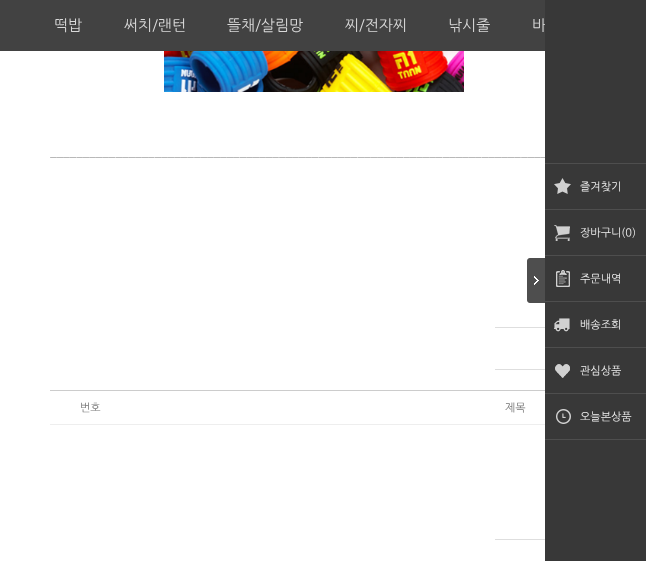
async function draw(canvas) {
  canvas.width = 646
  canvas.height = 561
  const ctx = canvas.getContext('2d')
  ctx.miterLimit = 4
  ctx.fontKerning = 'normal'
  async function loadImage(src) {
    const img = new Image()
    img.src = src
    await img.decode()
    return img
  }

  ctx.fillStyle = '#fff'
  ctx.fillRect(0, 0, 646, 561)
  ctx.fillStyle = '#424242'
  ctx.fillRect(0, 0, 545, 51)
  ctx.font = '15px NanumGothic'
  ctx.fillStyle = '#d9d9d9'
  ctx.fillText('떡밥', 54, 30)
  ctx.fillText('써치/랜턴', 124, 30)
  ctx.fillText('뜰채/살림망', 227, 30)
  ctx.fillText('찌/전자찌', 345, 30)
  ctx.fillText('낚시줄', 448, 30)
  ctx.fillText('바', 532, 30)
  ctx.drawImage(await loadImage('image0.png'), 164, 51, 300, 41)
  ctx.font = '12px NanumGothic'
  ctx.fillStyle = '#777'
  ctx.fillText('____________________________________________________________________________', 50, 156)
  ctx.fillStyle = '#dedede'
  ctx.fillRect(495, 327, 50, 1)
  ctx.fillRect(495, 369, 50, 1)
  ctx.fillStyle = '#ccc'
  ctx.fillRect(50, 390, 495, 1)
  ctx.font = '11px NanumGothic'
  ctx.fillStyle = '#777'
  ctx.fillText('번호', 80, 411)
  ctx.fillText('제목', 505, 411)
  ctx.fillStyle = '#eee'
  ctx.fillRect(50, 424, 495, 1)
  ctx.fillStyle = '#dedede'
  ctx.fillRect(495, 539, 50, 1)
  ctx.fillStyle = '#383838'
  ctx.fillRect(545, 0, 101, 561)
  ctx.drawImage(await loadImage('image1.png'), 527, 258, 18, 45)
  ctx.fillStyle = '#4e4e4e'
  ctx.fillRect(545, 163, 101, 1)
  ctx.fillRect(545, 209, 101, 1)
  ctx.drawImage(await loadImage('image2.png'), 554, 178, 17, 16)
  ctx.fillStyle = '#f0f0f0'
  ctx.fillText('즐겨찾기', 580, 190)
  ctx.fillStyle = '#4e4e4e'
  ctx.fillRect(545, 255, 101, 1)
  ctx.drawImage(await loadImage('image3.png'), 554, 225, 16, 16)
  ctx.fillStyle = '#f0f0f0'
  ctx.fillText('장바구니(0)', 580, 236)
  ctx.fillStyle = '#4e4e4e'
  ctx.fillRect(545, 301, 101, 1)
  ctx.drawImage(await loadImage('image4.png'), 556, 270, 14, 17)
  ctx.fillStyle = '#f0f0f0'
  ctx.fillText('주문내역', 580, 282)
  ctx.fillStyle = '#4e4e4e'
  ctx.fillRect(545, 347, 101, 1)
  ctx.drawImage(await loadImage('image5.png'), 554, 318, 16, 14)
  ctx.fillStyle = '#f0f0f0'
  ctx.fillText('배송조회', 580, 328)
  ctx.fillStyle = '#4e4e4e'
  ctx.fillRect(545, 393, 101, 1)
  ctx.drawImage(await loadImage('image6.png'), 555, 364, 15, 14)
  ctx.fillStyle = '#f0f0f0'
  ctx.fillText('관심상품', 580, 374)
  ctx.fillStyle = '#4e4e4e'
  ctx.fillRect(545, 439, 101, 1)
  ctx.drawImage(await loadImage('image7.png'), 556, 409, 15, 15)
  ctx.fillStyle = '#f0f0f0'
  ctx.fillText('오늘본상품', 580, 420)
}

draw(document.querySelector('canvas'))
